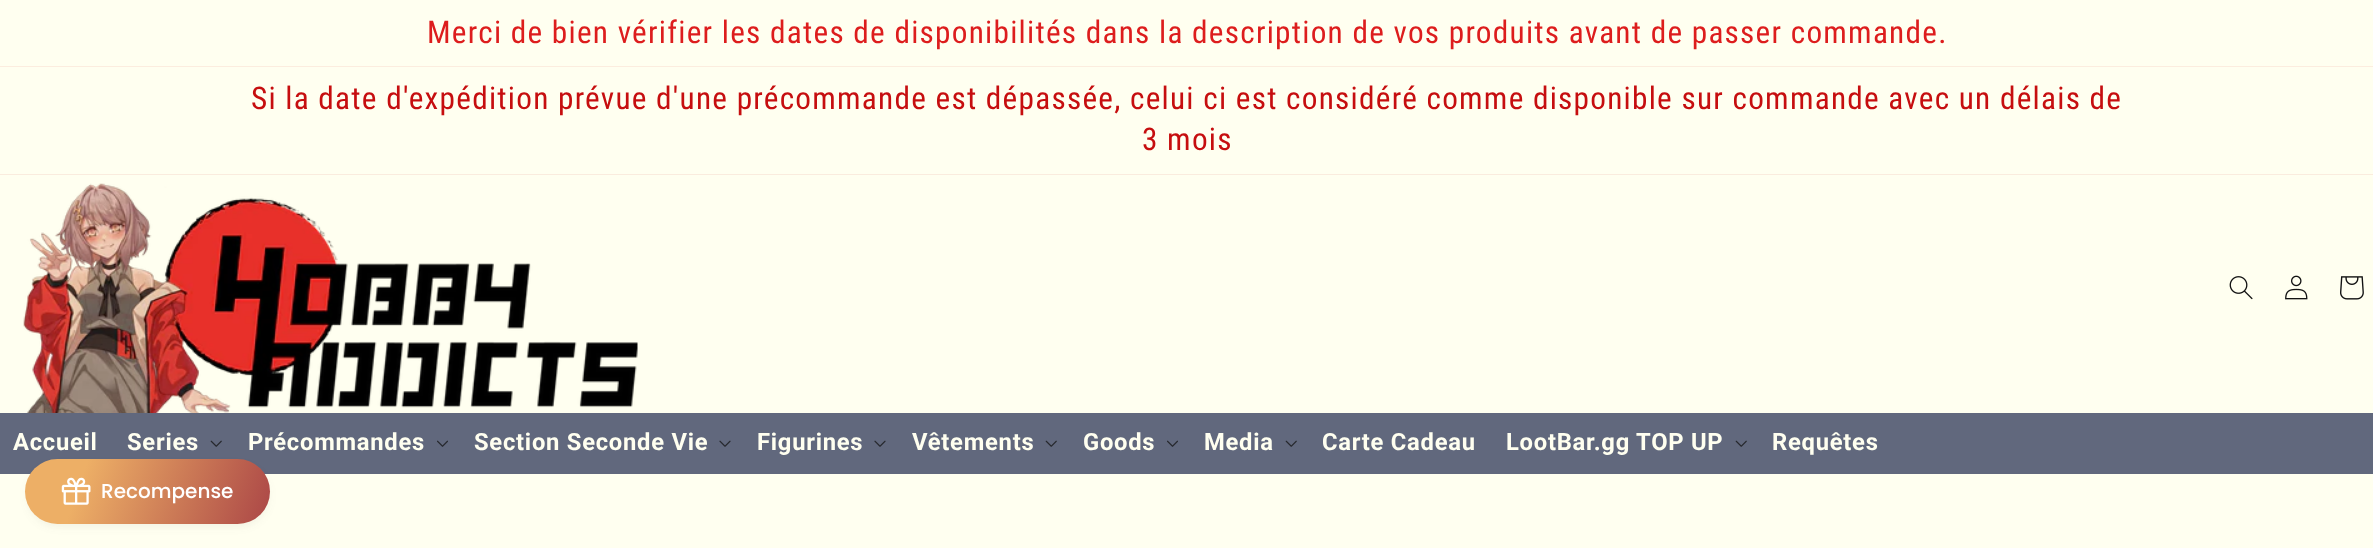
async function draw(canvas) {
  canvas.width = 2373
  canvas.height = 548
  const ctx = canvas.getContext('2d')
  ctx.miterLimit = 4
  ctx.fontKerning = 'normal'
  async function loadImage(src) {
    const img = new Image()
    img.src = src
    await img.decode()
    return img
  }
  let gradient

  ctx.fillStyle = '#fffff0'
  ctx.fillRect(0, 0, 2373, 548)
  ctx.fillStyle = '#fceddf'
  ctx.fillRect(0, 66, 2373, 1)
  ctx.letterSpacing = '1.25px'
  ctx.font = '31.25px Roboto Condensed'
  ctx.fillStyle = '#dd1d1d'
  ctx.fillText('Merci de bien vérifier les dates de disponibilités dans la description de vos produits avant de passer commande.', 427, 43)
  ctx.fillStyle = '#faecde'
  ctx.fillRect(0, 174, 2373, 1)
  ctx.fillStyle = '#c60e0f'
  ctx.fillText('Si la date d\'expédition prévue d\'une précommande est dépassée, celui ci est considéré comme disponible sur commande avec un délais de', 251, 109)
  ctx.fillText('3 mois', 1142, 150)
  ctx.drawImage(await loadImage('image0.png'), 23, 183, 615, 230)
  ctx.drawImage(await loadImage('image1.png'), 2229, 276, 24, 24)
  ctx.drawImage(await loadImage('image2.png'), 2285, 275, 23, 25)
  ctx.drawImage(await loadImage('image3.png'), 2340, 276, 24, 24)
  ctx.fillStyle = '#61687d'
  ctx.fillRect(0, 413, 2373, 61)
  ctx.letterSpacing = '0.75px'
  ctx.font = 'bold 23.75px Roboto'
  ctx.fillStyle = '#fffff0'
  ctx.fillText('Accueil', 13, 450)
  ctx.fillText('Series', 127, 450)
  ctx.drawImage(await loadImage('image4.png'), 210, 440, 12, 7)
  ctx.fillText('Précommandes', 248, 450)
  ctx.drawImage(await loadImage('image5.png'), 437, 440, 11, 7)
  ctx.fillText('Section Seconde Vie', 474, 450)
  ctx.drawImage(await loadImage('image6.png'), 719, 440, 12, 7)
  ctx.fillText('Figurines', 757, 450)
  ctx.drawImage(await loadImage('image6.png'), 874, 440, 12, 7)
  ctx.fillText('Vêtements', 912, 450)
  ctx.drawImage(await loadImage('image4.png'), 1045, 440, 12, 7)
  ctx.fillText('Goods', 1083, 450)
  ctx.drawImage(await loadImage('image5.png'), 1167, 440, 11, 7)
  ctx.fillText('Media', 1204, 450)
  ctx.drawImage(await loadImage('image4.png'), 1285, 440, 12, 7)
  ctx.fillText('Carte Cadeau', 1322, 450)
  ctx.fillText('LootBar.gg TOP UP', 1506, 450)
  ctx.drawImage(await loadImage('image4.png'), 1735, 440, 12, 7)
  ctx.fillText('Requêtes', 1772, 450)
  ctx.fillStyle = '#44444414'
  ctx.filter = 'blur(5px)'
  ctx.beginPath()
  ctx.roundRect(28, 466, 240, 60, 30)
  ctx.fill()
  ctx.filter = 'none'
  gradient = ctx.createLinearGradient(28, 449, 362, 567)
  gradient.addColorStop(0.17, '#edaf66')
  gradient.addColorStop(1, '#891036')
  ctx.fillStyle = gradient
  ctx.beginPath()
  ctx.roundRect(25, 459, 245, 65, 32.5)
  ctx.fill()
  ctx.drawImage(await loadImage('image7.png'), 61, 477, 30, 28)
  ctx.letterSpacing = '0px'
  ctx.font = '500 20px Poppins'
  ctx.fillStyle = '#fff'
  ctx.fillText('Recompense', 101, 498)
}

draw(document.querySelector('canvas'))
